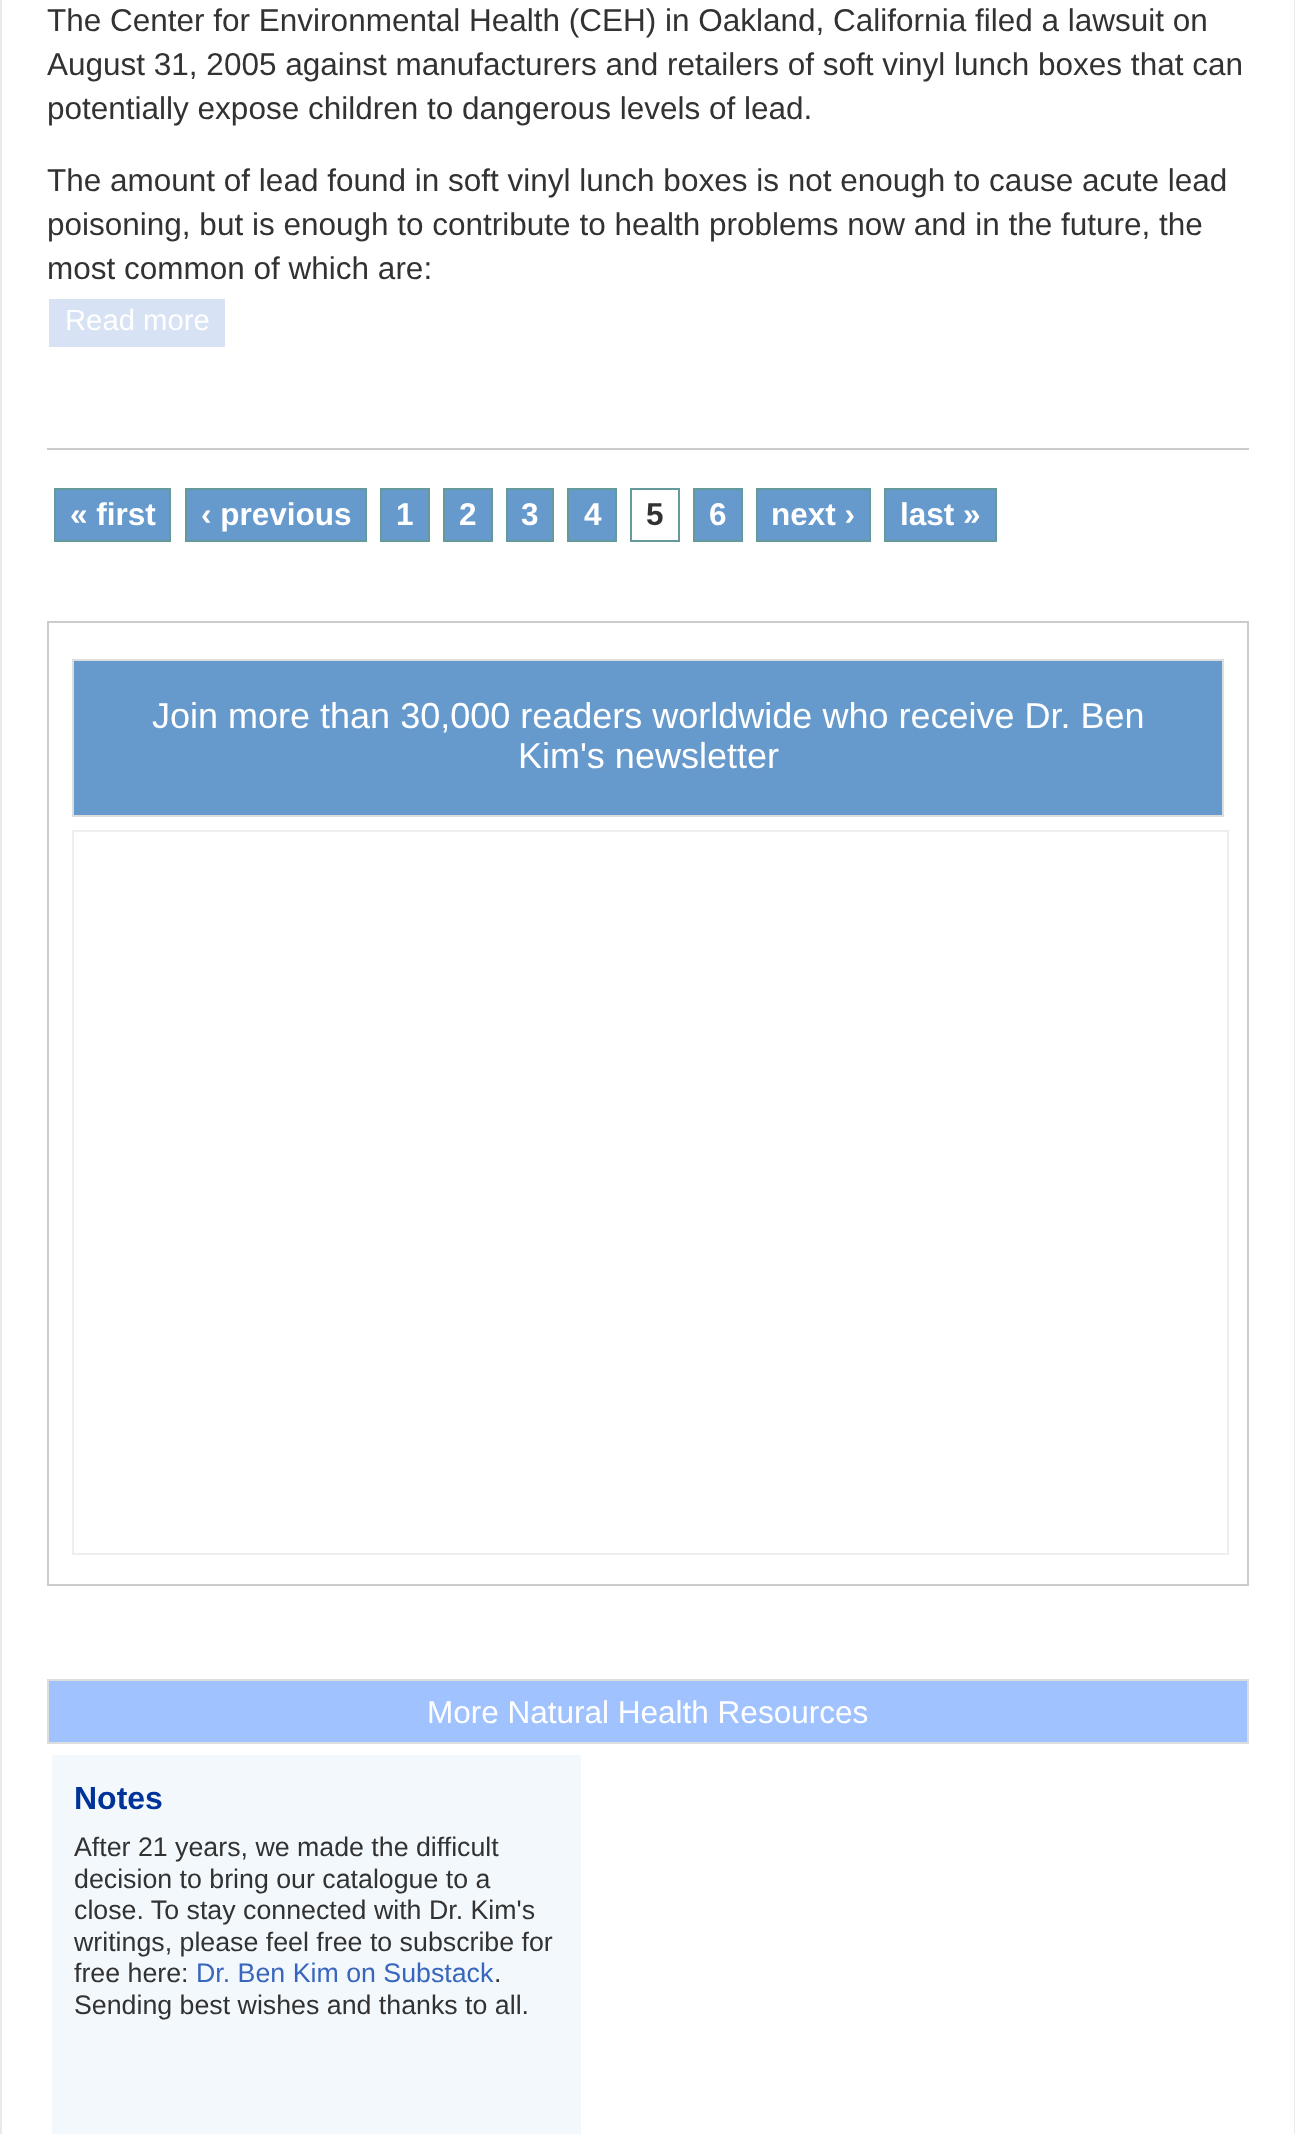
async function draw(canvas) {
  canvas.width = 1295
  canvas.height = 2134
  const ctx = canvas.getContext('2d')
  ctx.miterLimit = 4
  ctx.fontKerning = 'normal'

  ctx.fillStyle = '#fff'
  ctx.fillRect(0, 0, 1295, 2134)
  ctx.fillStyle = '#eaeaea'
  ctx.fillRect(1294, 0, 1, 2134)
  ctx.fillRect(0, 0, 2, 2134)
  ctx.fillStyle = '#ccc'
  ctx.fillRect(47, 448, 1202, 2)
  ctx.font = '31.5px Liberation Sans'
  ctx.fillStyle = '#323232'
  ctx.fillText('The Center for Environmental Health (CEH) in Oakland, California filed a lawsuit on', 47, 31)
  ctx.fillText('August 31, 2005 against manufacturers and retailers of soft vinyl lunch boxes that can', 47, 75)
  ctx.fillText('potentially expose children to dangerous levels of lead.', 47, 119)
  ctx.fillText('The amount of lead found in soft vinyl lunch boxes is not enough to cause acute lead', 47, 191)
  ctx.fillText('poisoning, but is enough to contribute to health problems now and in the future, the', 47, 235)
  ctx.fillText('most common of which are:', 47, 279)
  ctx.fillStyle = '#d7e2f4'
  ctx.fillRect(49, 299, 176, 48)
  ctx.font = '29.25px Liberation Sans'
  ctx.fillStyle = '#fff'
  ctx.fillText('Read more', 65, 330)
  ctx.fillStyle = '#69c'
  ctx.beginPath()
  ctx.rect(55, 489, 115, 52)
  ctx.fill()
  ctx.strokeStyle = '#699'
  ctx.lineWidth = 2
  ctx.stroke()
  ctx.font = 'bold 31.5px Liberation Sans'
  ctx.fillStyle = '#fff'
  ctx.fillText('« first', 70, 525)
  ctx.fillStyle = '#69c'
  ctx.beginPath()
  ctx.rect(186, 489, 180, 52)
  ctx.fill()
  ctx.stroke()
  ctx.fillStyle = '#fff'
  ctx.fillText('‹ previous', 201, 525)
  ctx.fillStyle = '#69c'
  ctx.beginPath()
  ctx.rect(381, 489, 48, 52)
  ctx.fill()
  ctx.stroke()
  ctx.fillStyle = '#fff'
  ctx.fillText('1', 396, 525)
  ctx.fillStyle = '#69c'
  ctx.beginPath()
  ctx.rect(444, 489, 48, 52)
  ctx.fill()
  ctx.stroke()
  ctx.fillStyle = '#fff'
  ctx.fillText('2', 459, 525)
  ctx.fillStyle = '#69c'
  ctx.beginPath()
  ctx.rect(507, 489, 46, 52)
  ctx.fill()
  ctx.stroke()
  ctx.fillStyle = '#fff'
  ctx.fillText('3', 521, 525)
  ctx.fillStyle = '#69c'
  ctx.beginPath()
  ctx.rect(568, 489, 48, 52)
  ctx.fill()
  ctx.stroke()
  ctx.fillStyle = '#fff'
  ctx.fillText('4', 584, 525)
  ctx.strokeRect(631, 489, 48, 52)
  ctx.fillStyle = '#323232'
  ctx.fillText('5', 646, 525)
  ctx.fillStyle = '#69c'
  ctx.beginPath()
  ctx.rect(694, 489, 48, 52)
  ctx.fill()
  ctx.stroke()
  ctx.fillStyle = '#fff'
  ctx.fillText('6', 709, 525)
  ctx.fillStyle = '#69c'
  ctx.beginPath()
  ctx.rect(757, 489, 113, 52)
  ctx.fill()
  ctx.stroke()
  ctx.fillStyle = '#fff'
  ctx.fillText('next ›', 771, 525)
  ctx.fillStyle = '#69c'
  ctx.beginPath()
  ctx.rect(885, 489, 111, 52)
  ctx.fill()
  ctx.stroke()
  ctx.fillStyle = '#fff'
  ctx.fillText('last »', 900, 525)
  ctx.strokeStyle = '#ccc'
  ctx.strokeRect(48, 622, 1200, 963)
  ctx.fillStyle = '#69c'
  ctx.beginPath()
  ctx.rect(73, 660, 1150, 156)
  ctx.fill()
  ctx.strokeStyle = '#ddd'
  ctx.stroke()
  ctx.font = '36px Liberation Sans'
  ctx.fillStyle = '#fff'
  ctx.fillText('Join more than 30,000 readers worldwide who receive Dr. Ben', 152, 728)
  ctx.fillText('Kim\'s newsletter', 518, 768)
  ctx.strokeStyle = '#eee'
  ctx.strokeRect(73, 831, 1155, 723)
  ctx.fillStyle = '#a0c2ff'
  ctx.beginPath()
  ctx.rect(48, 1680, 1200, 63)
  ctx.fill()
  ctx.strokeStyle = '#ddd'
  ctx.stroke()
  ctx.font = '31.5px Liberation Sans'
  ctx.fillStyle = '#fff'
  ctx.fillText('More Natural Health Resources', 427, 1723)
  ctx.fillStyle = '#f3f8fc'
  ctx.fillRect(52, 1755, 529, 379)
  ctx.font = 'bold 32px Liberation Sans'
  ctx.fillStyle = '#039'
  ctx.fillText('Notes', 74, 1809)
  ctx.font = '26.75px Liberation Sans'
  ctx.fillStyle = '#323232'
  ctx.fillText('After 21 years, we made the difficult', 74, 1856)
  ctx.fillText('decision to bring our catalogue to a', 74, 1888)
  ctx.fillText('close. To stay connected with Dr. Kim\'s', 74, 1919)
  ctx.fillText('writings, please feel free to subscribe for', 74, 1951)
  ctx.fillText('free here:', 74, 1982)
  ctx.fillStyle = '#3866bc'
  ctx.fillText('Dr. Ben Kim on Substack', 196, 1982)
  ctx.fillStyle = '#323232'
  ctx.fillText('.', 494, 1982)
  ctx.fillText('Sending best wishes and thanks to all.', 74, 2014)
}

draw(document.querySelector('canvas'))
